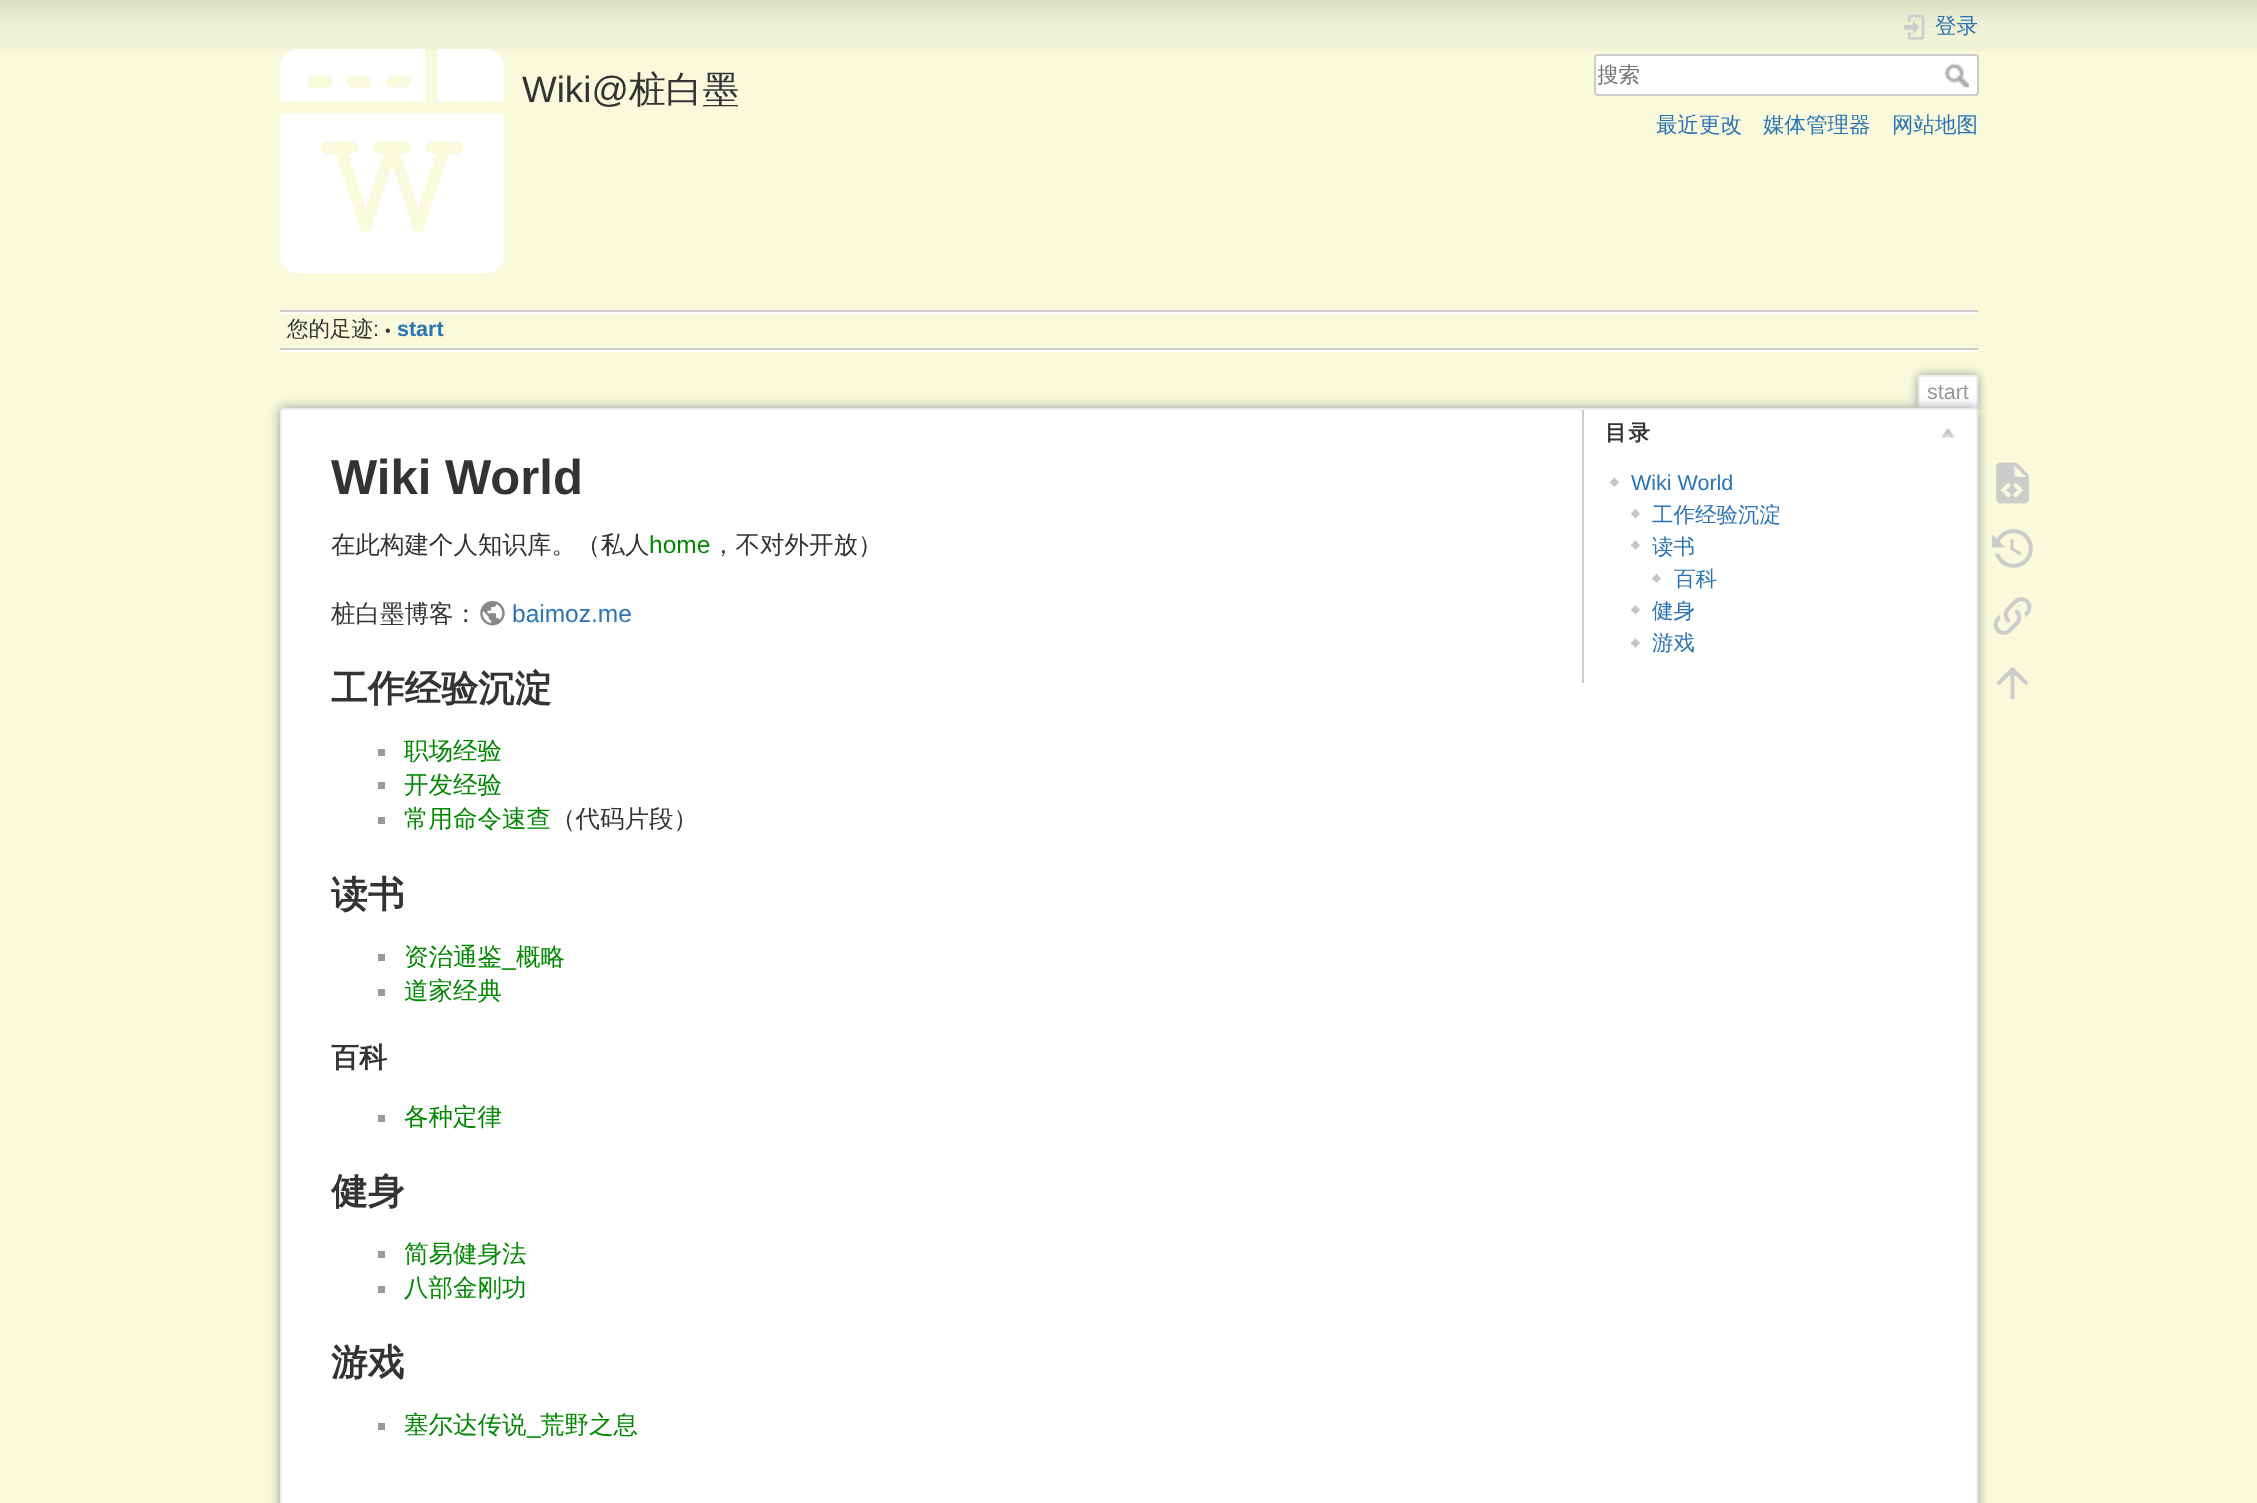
async function draw(canvas) {
  canvas.width = 2257
  canvas.height = 1503
  const ctx = canvas.getContext('2d')
  ctx.miterLimit = 4
  ctx.fontKerning = 'normal'
  async function loadImage(src) {
    const img = new Image()
    img.src = src
    await img.decode()
    return img
  }

  ctx.fillStyle = '#f8fadb'
  ctx.fillRect(0, 0, 2257, 1503)
  ctx.drawImage(await loadImage('image0.png'), 0, 0, 2257, 51)
  ctx.drawImage(await loadImage('image1.png'), 280, 49, 224, 224)
  ctx.font = '36.75px Liberation Sans'
  ctx.fillStyle = '#333'
  ctx.fillText('Wiki@', 522, 102)
  ctx.font = '500 36.75px WenQuanYi Zen Hei'
  ctx.fillText('桩白墨', 629, 102)
  ctx.drawImage(await loadImage('image2.png'), 1904, 14, 21, 26)
  ctx.font = '500 21.5px WenQuanYi Zen Hei'
  ctx.fillStyle = '#2b73b7'
  ctx.fillText('登录', 1935, 33)
  ctx.fillStyle = '#fff'
  ctx.beginPath()
  ctx.roundRect(1595, 55, 383, 40, 3)
  ctx.fill()
  ctx.strokeStyle = '#ccc'
  ctx.lineWidth = 2
  ctx.stroke()
  ctx.save()
  ctx.beginPath()
  ctx.rect(1598, 61, 341, 30)
  ctx.clip()
  ctx.fillStyle = '#757575'
  ctx.fillText('搜索', 1597, 82)
  ctx.restore()
  ctx.drawImage(await loadImage('image3.png'), 1944, 63, 25, 25)
  ctx.fillStyle = '#2b73b7'
  ctx.fillText('最近更改', 1656, 132)
  ctx.fillText('媒体管理器', 1763, 132)
  ctx.fillText('网站地图', 1892, 132)
  ctx.fillStyle = '#ccc'
  ctx.fillRect(280, 310, 1698, 2)
  ctx.fillStyle = '#fff'
  ctx.fillRect(280, 350, 1698, 2)
  ctx.fillRect(280, 312, 1698, 2)
  ctx.fillStyle = '#ccc'
  ctx.fillRect(280, 348, 1698, 2)
  ctx.fillStyle = '#333'
  ctx.fillText('您的足迹', 287, 336)
  ctx.font = '21.5px Liberation Sans'
  ctx.fillText(':', 373, 336)
  ctx.font = '16px Liberation Sans'
  ctx.fillText('•', 385, 336)
  ctx.font = 'bold 21.5px Liberation Sans'
  ctx.fillStyle = '#2b73b7'
  ctx.fillText('start', 397, 336)
  ctx.save()
  ctx.beginPath()
  ctx.rect(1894, 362, 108, 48)
  ctx.clip()
  ctx.fillStyle = '#999'
  ctx.filter = 'blur(5.5px)'
  ctx.beginPath()
  ctx.roundRect(1918, 375, 60, 35, 4)
  ctx.fill()
  ctx.filter = 'none'
  ctx.restore()
  ctx.fillStyle = '#fff'
  ctx.beginPath()
  ctx.roundRect(1920, 376, 56, 34, [2, 2, 0, 0])
  ctx.fill()
  ctx.fillStyle = '#eee'
  ctx.fillRect(1920, 375, 56, 2)
  ctx.fillRect(1976, 376, 2, 34)
  ctx.fillRect(1918, 376, 2, 34)
  ctx.font = '21.5px Liberation Sans'
  ctx.fillStyle = '#999'
  ctx.fillText('start', 1927, 399)
  ctx.filter = 'blur(6px)'
  ctx.beginPath()
  ctx.roundRect(280, 408, 1698, 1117, 4)
  ctx.fill()
  ctx.filter = 'none'
  ctx.fillStyle = '#fff'
  ctx.beginPath()
  ctx.roundRect(281, 409, 1696, 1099, 3)
  ctx.fill()
  ctx.strokeStyle = '#eee'
  ctx.stroke()
  ctx.font = 'bold 49px Liberation Sans'
  ctx.fillStyle = '#333'
  ctx.fillText('Wiki World', 331, 494)
  ctx.fillStyle = '#fff'
  ctx.beginPath()
  ctx.roundRect(1582, 410, 394, 273, [0, 2, 0, 0])
  ctx.fill()
  ctx.fillStyle = '#ccc'
  ctx.fillRect(1582, 410, 2, 273)
  ctx.letterSpacing = '2px'
  ctx.font = 'bold 21.5px WenQuanYi Zen Hei'
  ctx.fillStyle = '#333'
  ctx.fillText('目录', 1605, 440)
  ctx.drawImage(await loadImage('image4.png'), 1941, 428, 14, 10)
  ctx.drawImage(await loadImage('image5.png'), 1610, 477, 9, 10)
  ctx.letterSpacing = '0px'
  ctx.font = '21.5px Liberation Sans'
  ctx.fillStyle = '#2b73b7'
  ctx.fillText('Wiki World', 1631, 490)
  ctx.drawImage(await loadImage('image6.png'), 1631, 509, 9, 10)
  ctx.font = '500 21.5px WenQuanYi Zen Hei'
  ctx.fillText('工作经验沉淀', 1652, 522)
  ctx.drawImage(await loadImage('image5.png'), 1631, 540, 9, 10)
  ctx.fillText('读书', 1652, 554)
  ctx.drawImage(await loadImage('image7.png'), 1652, 574, 9, 10)
  ctx.fillText('百科', 1674, 586)
  ctx.drawImage(await loadImage('image8.png'), 1631, 605, 9, 10)
  ctx.fillText('健身', 1652, 618)
  ctx.drawImage(await loadImage('image5.png'), 1631, 638, 9, 10)
  ctx.fillText('游戏', 1652, 650)
  ctx.font = '500 24.5px WenQuanYi Zen Hei'
  ctx.fillStyle = '#333'
  ctx.fillText('在此构建个人知识库。（私人', 331, 553)
  ctx.font = '24.5px Liberation Sans'
  ctx.fillStyle = '#080'
  ctx.fillText('home', 649, 553)
  ctx.font = '500 24.5px WenQuanYi Zen Hei'
  ctx.fillStyle = '#333'
  ctx.fillText('，不对外开放）', 711, 553)
  ctx.fillText('桩白墨博客：', 331, 622)
  ctx.drawImage(await loadImage('image9.png'), 480, 601, 25, 25)
  ctx.font = '24.5px Liberation Sans'
  ctx.fillStyle = '#2b73b7'
  ctx.fillText('baimoz.me', 512, 622)
  ctx.font = 'bold 36.75px WenQuanYi Zen Hei'
  ctx.fillStyle = '#333'
  ctx.fillText('工作经验沉淀', 331, 701)
  ctx.fillStyle = '#999'
  ctx.fillRect(378, 749, 7, 7)
  ctx.font = '500 24.5px WenQuanYi Zen Hei'
  ctx.fillStyle = '#080'
  ctx.fillText('职场经验', 404, 759)
  ctx.fillStyle = '#999'
  ctx.fillRect(378, 782, 7, 7)
  ctx.fillStyle = '#080'
  ctx.fillText('开发经验', 404, 793)
  ctx.fillStyle = '#999'
  ctx.fillRect(378, 817, 7, 7)
  ctx.fillStyle = '#080'
  ctx.fillText('常用命令速查', 404, 827)
  ctx.fillStyle = '#333'
  ctx.fillText('（代码片段）', 551, 827)
  ctx.font = 'bold 36.75px WenQuanYi Zen Hei'
  ctx.fillText('读书', 331, 907)
  ctx.fillStyle = '#999'
  ctx.fillRect(378, 954, 7, 7)
  ctx.font = '500 24.5px WenQuanYi Zen Hei'
  ctx.fillStyle = '#080'
  ctx.fillText('资治通鉴', 404, 965)
  ctx.fillText('概略', 516, 965)
  ctx.font = '24.5px Liberation Sans'
  ctx.fillText('_', 502, 965)
  ctx.fillStyle = '#999'
  ctx.fillRect(378, 989, 7, 7)
  ctx.font = '500 24.5px WenQuanYi Zen Hei'
  ctx.fillStyle = '#080'
  ctx.fillText('道家经典', 404, 999)
  ctx.font = 'bold 28px WenQuanYi Zen Hei'
  ctx.fillStyle = '#333'
  ctx.fillText('百科', 331, 1067)
  ctx.fillStyle = '#999'
  ctx.fillRect(378, 1115, 7, 7)
  ctx.font = '500 24.5px WenQuanYi Zen Hei'
  ctx.fillStyle = '#080'
  ctx.fillText('各种定律', 404, 1125)
  ctx.font = 'bold 36.75px WenQuanYi Zen Hei'
  ctx.fillStyle = '#333'
  ctx.fillText('健身', 331, 1204)
  ctx.fillStyle = '#999'
  ctx.fillRect(378, 1251, 7, 7)
  ctx.font = '500 24.5px WenQuanYi Zen Hei'
  ctx.fillStyle = '#080'
  ctx.fillText('简易健身法', 404, 1262)
  ctx.fillStyle = '#999'
  ctx.fillRect(378, 1286, 7, 7)
  ctx.fillStyle = '#080'
  ctx.fillText('八部金刚功', 404, 1296)
  ctx.font = 'bold 36.75px WenQuanYi Zen Hei'
  ctx.fillStyle = '#333'
  ctx.fillText('游戏', 331, 1375)
  ctx.fillStyle = '#999'
  ctx.fillRect(378, 1423, 7, 7)
  ctx.font = '500 24.5px WenQuanYi Zen Hei'
  ctx.fillStyle = '#080'
  ctx.fillText('塞尔达传说', 404, 1433)
  ctx.font = '24.5px Liberation Sans'
  ctx.fillText('_', 527, 1433)
  ctx.font = '500 24.5px WenQuanYi Zen Hei'
  ctx.fillText('荒野之息', 540, 1433)
  ctx.drawImage(await loadImage('image10.png'), 1996, 462, 33, 42)
  ctx.drawImage(await loadImage('image11.png'), 1992, 529, 41, 39)
  ctx.drawImage(await loadImage('image12.png'), 1993, 597, 39, 38)
  ctx.fillStyle = '#ccc'
  ctx.beginPath()
  ctx.moveTo(2014.5, 699)
  ctx.lineTo(2010.5, 699)
  ctx.lineTo(2010.5, 674.5)
  ctx.lineTo(1999, 685.5)
  ctx.lineTo(1996.5, 682.5)
  ctx.lineTo(2012.5, 666.5)
  ctx.lineTo(2028.5, 682.5)
  ctx.lineTo(2026, 685.5)
  ctx.lineTo(2014.5, 674.5)
  ctx.closePath()
  ctx.fill()
}

draw(document.querySelector('canvas'))
